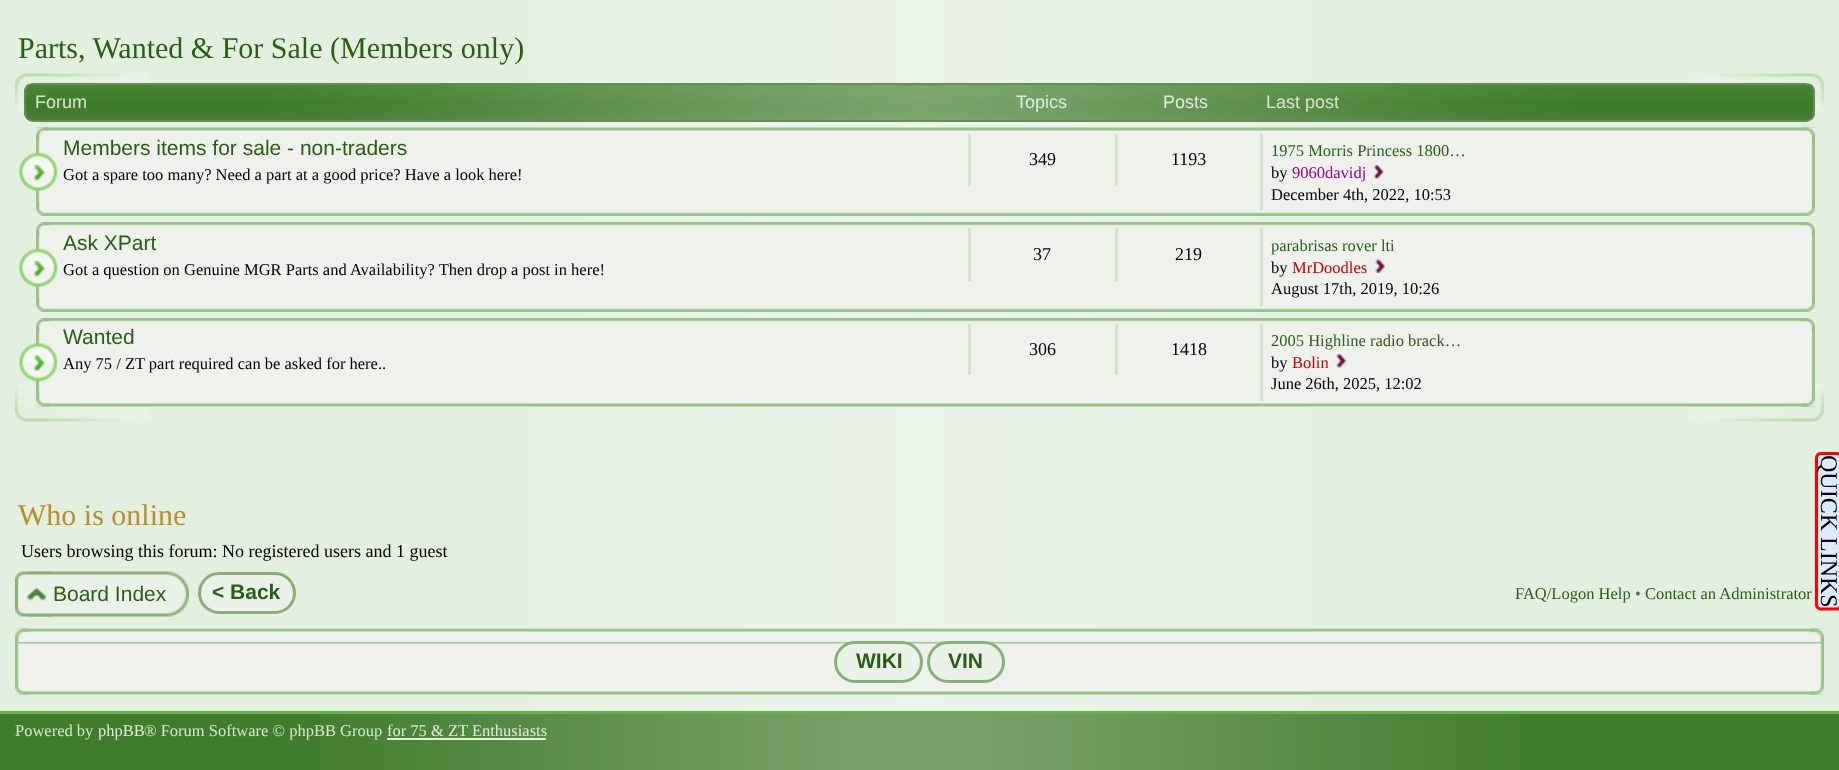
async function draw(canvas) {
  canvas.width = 1839
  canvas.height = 770
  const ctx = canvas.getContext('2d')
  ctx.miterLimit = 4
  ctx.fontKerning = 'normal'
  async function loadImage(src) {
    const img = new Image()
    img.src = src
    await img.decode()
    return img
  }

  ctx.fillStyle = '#e3efdf'
  ctx.fillRect(0, 0, 1839, 770)
  ctx.drawImage(await loadImage('image0.png'), 535, 0, 771, 711)
  ctx.font = '30px Liberation Serif'
  ctx.fillStyle = '#295f15'
  ctx.fillText('Parts, Wanted & For Sale (Members only)', 18, 58)
  ctx.drawImage(await loadImage('image1.png'), 15, 73, 1809, 349)
  ctx.drawImage(await loadImage('image2.png'), 24, 84, 1791, 38)
  ctx.beginPath()
  ctx.roundRect(25, 84, 1789, 37, 8)
  ctx.strokeStyle = '#648d56'
  ctx.lineWidth = 2
  ctx.stroke()
  ctx.font = '18px Liberation Sans'
  ctx.fillStyle = '#d9e5d5'
  ctx.fillText('Forum', 35, 108)
  ctx.fillStyle = '#e3ece0'
  ctx.fillText('Topics', 1016, 108)
  ctx.fillText('Posts', 1163, 108)
  ctx.fillStyle = '#d9e5d5'
  ctx.fillText('Last post', 1266, 108)
  ctx.fillStyle = '#eef1ec'
  ctx.fillRect(38, 130, 1775, 84)
  ctx.drawImage(await loadImage('image3.png'), 36, 127, 1779, 89)
  ctx.drawImage(await loadImage('image4.png'), 19, 152, 39, 39)
  ctx.font = '21px Liberation Sans'
  ctx.fillStyle = '#295f15'
  ctx.fillText('Members items for sale - non-traders', 63, 155)
  ctx.font = '16.5px Liberation Serif'
  ctx.fillStyle = '#000'
  ctx.fillText('Got a spare too many? Need a part at a good price? Have a look here!', 63, 180)
  ctx.fillStyle = '#d4e3ce'
  ctx.fillRect(968, 134, 3, 52)
  ctx.font = '18px Liberation Serif'
  ctx.fillStyle = '#000'
  ctx.fillText('349', 1029, 165)
  ctx.fillStyle = '#d4e3ce'
  ctx.fillRect(1115, 134, 3, 52)
  ctx.fillStyle = '#000'
  ctx.fillText('1193', 1171, 165)
  ctx.fillStyle = '#d4e3ce'
  ctx.fillRect(1260, 134, 3, 76)
  ctx.font = '16.5px Liberation Serif'
  ctx.fillStyle = '#295f15'
  ctx.fillText('1975 Morris Princess 1800…', 1271, 156)
  ctx.fillStyle = '#000'
  ctx.fillText('by', 1271, 178)
  ctx.fillStyle = '#909'
  ctx.fillText('9060davidj', 1292, 178)
  ctx.drawImage(await loadImage('image5.png'), 1373, 165, 11, 14)
  ctx.fillStyle = '#000'
  ctx.fillText('December 4th, 2022, 10:53', 1271, 200)
  ctx.fillStyle = '#eef1ec'
  ctx.fillRect(38, 224, 1775, 86)
  ctx.drawImage(await loadImage('image6.png'), 36, 222, 1779, 90)
  ctx.drawImage(await loadImage('image4.png'), 19, 248, 39, 39)
  ctx.font = '21px Liberation Sans'
  ctx.fillStyle = '#295f15'
  ctx.fillText('Ask XPart', 63, 250)
  ctx.font = '16.5px Liberation Serif'
  ctx.fillStyle = '#000'
  ctx.fillText('Got a question on Genuine MGR Parts and Availability? Then drop a post in here!', 63, 275)
  ctx.fillStyle = '#d4e3ce'
  ctx.fillRect(968, 228, 3, 53)
  ctx.font = '18px Liberation Serif'
  ctx.fillStyle = '#000'
  ctx.fillText('37', 1033, 260)
  ctx.fillStyle = '#d4e3ce'
  ctx.fillRect(1115, 228, 3, 53)
  ctx.fillStyle = '#000'
  ctx.fillText('219', 1175, 260)
  ctx.fillStyle = '#d4e3ce'
  ctx.fillRect(1260, 228, 3, 78)
  ctx.font = '16.5px Liberation Serif'
  ctx.fillStyle = '#295f15'
  ctx.fillText('parabrisas rover lti', 1271, 251)
  ctx.fillStyle = '#000'
  ctx.fillText('by', 1271, 273)
  ctx.fillStyle = '#c00'
  ctx.fillText('MrDoodles', 1292, 273)
  ctx.drawImage(await loadImage('image7.png'), 1375, 259, 10, 14)
  ctx.fillStyle = '#000'
  ctx.fillText('August 17th, 2019, 10:26', 1271, 294)
  ctx.fillStyle = '#eef1ec'
  ctx.fillRect(36, 320, 1779, 87)
  ctx.drawImage(await loadImage('image8.png'), 36, 318, 1779, 89)
  ctx.drawImage(await loadImage('image9.png'), 19, 343, 39, 39)
  ctx.font = '21px Liberation Sans'
  ctx.fillStyle = '#295f15'
  ctx.fillText('Wanted', 63, 344)
  ctx.font = '16.5px Liberation Serif'
  ctx.fillStyle = '#000'
  ctx.fillText('Any 75 / ZT part required can be asked for here..', 63, 369)
  ctx.fillStyle = '#d4e3ce'
  ctx.fillRect(968, 324, 3, 51)
  ctx.font = '18px Liberation Serif'
  ctx.fillStyle = '#000'
  ctx.fillText('306', 1029, 355)
  ctx.fillStyle = '#d4e3ce'
  ctx.fillRect(1115, 324, 3, 51)
  ctx.fillStyle = '#000'
  ctx.fillText('1418', 1171, 355)
  ctx.fillStyle = '#d4e3ce'
  ctx.fillRect(1260, 324, 3, 77)
  ctx.font = '16.5px Liberation Serif'
  ctx.fillStyle = '#295f15'
  ctx.fillText('2005 Highline radio brack…', 1271, 346)
  ctx.fillStyle = '#000'
  ctx.fillText('by', 1271, 368)
  ctx.fillStyle = '#c00'
  ctx.fillText('Bolin', 1292, 368)
  ctx.drawImage(await loadImage('image10.png'), 1336, 354, 10, 14)
  ctx.fillStyle = '#000'
  ctx.fillText('June 26th, 2025, 12:02', 1271, 389)
  ctx.beginPath()
  ctx.moveTo(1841, 458)
  ctx.lineTo(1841, 604.5)
  ctx.bezierCurveTo(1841, 607, 1839, 609, 1836.5, 609)
  ctx.lineTo(1821, 609)
  ctx.bezierCurveTo(1818.5, 609, 1816.5, 607, 1816.5, 604.5)
  ctx.lineTo(1816.5, 458)
  ctx.bezierCurveTo(1816.5, 455.5, 1818.5, 453.5, 1821, 453.5)
  ctx.lineTo(1836.5, 453.5)
  ctx.bezierCurveTo(1839, 453.5, 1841, 455.5, 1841, 458)
  ctx.closePath()
  ctx.strokeStyle = '#f00'
  ctx.lineWidth = 3
  ctx.stroke()
  ctx.font = '30px Liberation Serif'
  ctx.fillStyle = '#b4902c'
  ctx.fillText('Who is online', 18, 525)
  ctx.fillStyle = '#dcebfe'
  ctx.beginPath()
  ctx.moveTo(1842, 458)
  ctx.lineTo(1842, 605)
  ctx.bezierCurveTo(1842, 608, 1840, 611, 1836, 611)
  ctx.lineTo(1821, 611)
  ctx.bezierCurveTo(1818, 611, 1815, 608, 1815, 605)
  ctx.lineTo(1815, 458)
  ctx.bezierCurveTo(1815, 455, 1818, 452, 1821, 452)
  ctx.lineTo(1836, 452)
  ctx.bezierCurveTo(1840, 452, 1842, 455, 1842, 458)
  ctx.closePath()
  ctx.fill()
  ctx.beginPath()
  ctx.moveTo(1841, 458)
  ctx.lineTo(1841, 604.5)
  ctx.bezierCurveTo(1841, 607, 1839, 609, 1836.5, 609)
  ctx.lineTo(1821, 609)
  ctx.bezierCurveTo(1818.5, 609, 1816.5, 607, 1816.5, 604.5)
  ctx.lineTo(1816.5, 458)
  ctx.bezierCurveTo(1816.5, 455.5, 1818.5, 453.5, 1821, 453.5)
  ctx.lineTo(1836.5, 453.5)
  ctx.bezierCurveTo(1839, 453.5, 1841, 455.5, 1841, 458)
  ctx.closePath()
  ctx.stroke()
  ctx.font = '24px Liberation Serif'
  ctx.fillStyle = '#000'
  ctx.save()
  ctx.translate(1821, 455)
  ctx.rotate(90 * Math.PI / 180)
  ctx.fillText('QUICK LINKS', 0, 0)
  ctx.restore()
  ctx.font = '18px Liberation Serif'
  ctx.fillText('Users browsing this forum: No registered users and 1 guest', 21, 557)
  ctx.drawImage(await loadImage('image11.png'), 30, 571, 159, 46)
  ctx.drawImage(await loadImage('image12.png'), 15, 571, 38, 46)
  ctx.font = '21px Liberation Sans'
  ctx.fillStyle = '#295f15'
  ctx.fillText('Board Index', 53, 601)
  ctx.fillStyle = '#eaf1e8'
  ctx.beginPath()
  ctx.roundRect(199.5, 573.5, 95, 39, 19.5)
  ctx.fill()
  ctx.strokeStyle = '#87b078'
  ctx.stroke()
  ctx.font = 'bold 21px Liberation Sans'
  ctx.fillStyle = '#295f15'
  ctx.fillText('< Back', 212, 599)
  ctx.font = '16.5px Liberation Serif'
  ctx.fillText('FAQ/Logon Help', 1515, 599)
  ctx.fillStyle = '#666'
  ctx.fillText('•', 1635, 599)
  ctx.fillStyle = '#295f15'
  ctx.fillText('Contact an Administrator', 1645, 599)
  ctx.fillStyle = '#eef1ec'
  ctx.fillRect(15, 631, 1809, 64)
  ctx.drawImage(await loadImage('image13.png'), 15, 628, 1809, 67)
  ctx.fillStyle = '#eaf1e8'
  ctx.beginPath()
  ctx.roundRect(835.5, 642.5, 86, 39, 19.5)
  ctx.fill()
  ctx.stroke()
  ctx.font = 'bold 21px Liberation Sans'
  ctx.fillStyle = '#295f15'
  ctx.fillText('WIKI', 856, 668)
  ctx.fillStyle = '#eaf1e8'
  ctx.beginPath()
  ctx.roundRect(928.5, 642.5, 75, 39, 19.5)
  ctx.fill()
  ctx.stroke()
  ctx.fillStyle = '#295f15'
  ctx.fillText('VIN', 948, 668)
  ctx.fillStyle = '#417c2c'
  ctx.fillRect(0, 714, 1839, 56)
  ctx.drawImage(await loadImage('image14.png'), 320, 714, 1200, 56)
  ctx.fillStyle = '#65b24b'
  ctx.fillRect(0, 711, 1839, 3)
  ctx.font = '16.5px Liberation Serif'
  ctx.fillStyle = '#d4e9cc'
  ctx.fillText('Powered by', 15, 736)
  ctx.fillStyle = '#e3ece0'
  ctx.fillText('phpBB', 98, 736)
  ctx.fillStyle = '#d4e9cc'
  ctx.fillText('® Forum Software © phpBB Group', 144, 736)
  ctx.fillStyle = '#e3ece0'
  ctx.fillText('for 75 & ZT Enthusiasts', 387, 736)
  ctx.fillStyle = '#e6f1e1'
  ctx.fillRect(387, 738, 159, 2)
}

draw(document.querySelector('canvas'))
